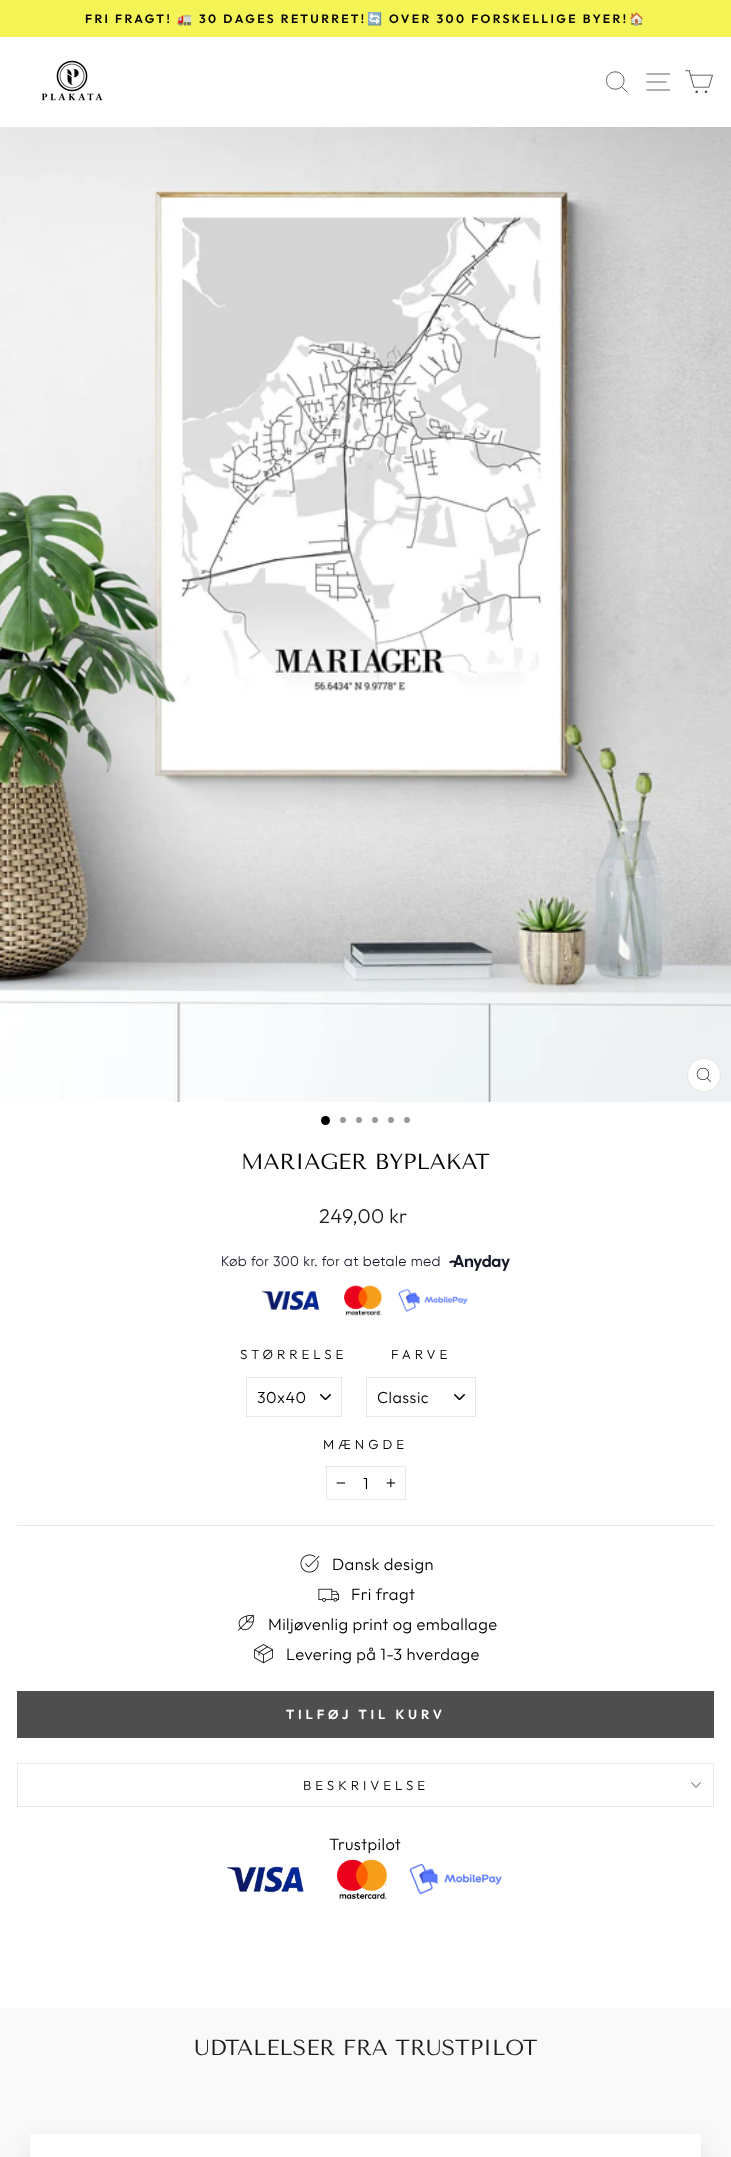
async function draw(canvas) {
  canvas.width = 731
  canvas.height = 2157
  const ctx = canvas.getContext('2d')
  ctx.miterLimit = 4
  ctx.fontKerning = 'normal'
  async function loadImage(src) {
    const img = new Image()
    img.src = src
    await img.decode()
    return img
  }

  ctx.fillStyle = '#fff'
  ctx.fillRect(0, 0, 731, 2157)
  ctx.fillStyle = '#f5f457'
  ctx.fillRect(0, 0, 731, 37)
  ctx.letterSpacing = '2.4px'
  ctx.font = '600 12.2px Outfit'
  ctx.fillStyle = '#000'
  ctx.fillText('FRI FRAGT!', 85, 23)
  ctx.font = 'bold 12.2px Noto Color Emoji'
  ctx.fillText('🚛', 177, 23)
  ctx.font = '600 12.2px Outfit'
  ctx.fillText('30 DAGES RETURRET!', 199, 23)
  ctx.font = 'bold 12.2px Noto Color Emoji'
  ctx.fillText('🔄', 367, 23)
  ctx.font = '600 12.2px Outfit'
  ctx.fillText('OVER 300 FORSKELLIGE BYER!', 389, 23)
  ctx.font = 'bold 12.2px Noto Color Emoji'
  ctx.fillText('🏠', 629, 23)
  ctx.drawImage(await loadImage('image0.png'), 41, 58, 62, 44)
  ctx.beginPath()
  ctx.moveTo(624, 80.5)
  ctx.bezierCurveTo(624, 92, 606.5, 92, 606.5, 80.5)
  ctx.bezierCurveTo(606.5, 69, 624, 69, 624, 80.5)
  ctx.closePath()
  ctx.moveTo(627.5, 92.5)
  ctx.lineTo(621.5, 86.5)
  ctx.strokeStyle = '#4e4e4e'
  ctx.lineWidth = 0.9
  ctx.stroke()
  ctx.beginPath()
  ctx.moveTo(646.5, 74)
  ctx.lineTo(670, 74)
  ctx.moveTo(646.5, 82)
  ctx.lineTo(666.5, 82)
  ctx.moveTo(646.5, 90)
  ctx.lineTo(670, 90)
  ctx.stroke()
  ctx.drawImage(await loadImage('image1.png'), 685, 70, 28, 24)
  ctx.drawImage(await loadImage('image2.png'), 0, 127, 731, 975)
  ctx.fillStyle = '#fff'
  ctx.beginPath()
  ctx.arc(704, 1075, 16.5, 0, 2 * Math.PI)
  ctx.fill()
  ctx.strokeStyle = '#e8e8e1'
  ctx.lineWidth = 1
  ctx.stroke()
  ctx.drawImage(await loadImage('image3.png'), 696, 1067, 15, 15)
  ctx.fillStyle = '#000'
  ctx.beginPath()
  ctx.arc(325.5, 1120.5, 4.5, 0, 2 * Math.PI)
  ctx.fill()
  ctx.fillStyle = '#999'
  ctx.beginPath()
  ctx.arc(343, 1120, 3, 0, 2 * Math.PI)
  ctx.fill()
  ctx.beginPath()
  ctx.arc(359, 1120, 3, 0, 2 * Math.PI)
  ctx.fill()
  ctx.beginPath()
  ctx.arc(375, 1120, 3, 0, 2 * Math.PI)
  ctx.fill()
  ctx.beginPath()
  ctx.arc(391, 1120, 3, 0, 2 * Math.PI)
  ctx.fill()
  ctx.beginPath()
  ctx.arc(407, 1120, 3, 0, 2 * Math.PI)
  ctx.fill()
  ctx.letterSpacing = '0px'
  ctx.font = '21.9px Tenor Sans'
  ctx.fillStyle = '#000'
  ctx.fillText('MARIAGER BYPLAKAT', 241, 1169)
  ctx.letterSpacing = '0.4px'
  ctx.font = '300 20px Outfit'
  ctx.fillStyle = '#1c1d1d'
  ctx.fillText('249,00 kr', 319, 1223)
  ctx.font = '14px Gilroy'
  ctx.fillStyle = '#151826'
  ctx.fillText('Køb for 300 kr. for at betale med', 221, 1266)
  ctx.drawImage(await loadImage('image4.png'), 449, 1255, 61, 16)
  ctx.drawImage(await loadImage('image5.png'), 262, 1285, 206, 31)
  ctx.letterSpacing = '4px'
  ctx.font = '300 13.25px Outfit'
  ctx.fillStyle = '#000'
  ctx.fillText('STØRRELSE', 240, 1359)
  ctx.drawImage(await loadImage('image6.png'), 320, 1394, 11, 6)
  ctx.strokeRect(246.5, 1377.5, 95, 39)
  ctx.letterSpacing = '0.5px'
  ctx.font = '300 16px Outfit'
  ctx.fillText('30x40', 257, 1403)
  ctx.letterSpacing = '4px'
  ctx.font = '300 13.25px Outfit'
  ctx.fillText('FARVE', 391, 1359)
  ctx.drawImage(await loadImage('image6.png'), 454, 1394, 11, 6)
  ctx.strokeRect(366.5, 1377.5, 109, 39)
  ctx.letterSpacing = '0.5px'
  ctx.font = '300 16px Outfit'
  ctx.fillText('Classic', 377, 1403)
  ctx.letterSpacing = '4px'
  ctx.font = '300 13.25px Outfit'
  ctx.fillText('MÆNGDE', 323, 1449)
  ctx.strokeRect(326.5, 1466.5, 79, 33)
  ctx.drawImage(await loadImage('image7.png'), 336, 1482, 10, 2)
  ctx.letterSpacing = '0.5px'
  ctx.font = '300 16px Outfit'
  ctx.fillText('1', 363, 1489)
  ctx.drawImage(await loadImage('image8.png'), 386, 1478, 10, 10)
  ctx.fillStyle = '#e8e8e1'
  ctx.fillRect(17, 1525, 697, 1)
  ctx.drawImage(await loadImage('image9.png'), 300, 1554, 20, 19)
  ctx.letterSpacing = '0.4px'
  ctx.font = '300 16.5px Outfit'
  ctx.fillStyle = '#000'
  ctx.fillText('Dansk design', 332, 1570)
  ctx.drawImage(await loadImage('image10.png'), 318, 1588, 21, 14)
  ctx.fillText('Fri fragt', 351, 1600)
  ctx.drawImage(await loadImage('image11.png'), 237, 1614, 18, 17)
  ctx.fillText('Miljøvenlig print og emballage', 268, 1630)
  ctx.drawImage(await loadImage('image12.png'), 254, 1644, 19, 20)
  ctx.fillText('Levering på 1-3 hverdage', 286, 1660)
  ctx.fillStyle = '#4e4e4e'
  ctx.fillRect(17, 1691, 697, 47)
  ctx.letterSpacing = '3.9px'
  ctx.font = '600 13px Outfit'
  ctx.fillStyle = '#fff'
  ctx.fillText('TILFØJ TIL KURV', 286, 1719)
  ctx.fillStyle = '#e8e8e1'
  ctx.fillRect(17, 1806, 697, 1)
  ctx.fillRect(17, 1763, 697, 1)
  ctx.fillRect(713, 1763, 1, 43)
  ctx.fillRect(17, 1763, 1, 43)
  ctx.letterSpacing = '4px'
  ctx.font = '300 13.25px Outfit'
  ctx.fillStyle = '#000'
  ctx.fillText('BESKRIVELSE', 303, 1790)
  ctx.beginPath()
  ctx.moveTo(691.5, 1782.5)
  ctx.lineTo(696, 1787.5)
  ctx.lineTo(700.5, 1782.5)
  ctx.strokeStyle = '#000'
  ctx.lineWidth = 0.7
  ctx.stroke()
  ctx.letterSpacing = '0.4px'
  ctx.font = '300 16.5px Outfit'
  ctx.fillText('Trustpilot', 329, 1850)
  ctx.drawImage(await loadImage('image13.png'), 227, 1859, 275, 41)
  ctx.fillStyle = '#f9f9f9'
  ctx.fillRect(0, 2008, 731, 149)
  ctx.letterSpacing = '0px'
  ctx.font = '21.9px Tenor Sans'
  ctx.fillStyle = '#1c1d1d'
  ctx.fillText('UDTALELSER FRA TRUSTPILOT', 194, 2055)
  ctx.fillStyle = '#0000001a'
  ctx.filter = 'blur(12.5px)'
  ctx.beginPath()
  ctx.rect(30, 2144, 671, 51)
  ctx.fill()
  ctx.filter = 'none'
  ctx.fillStyle = '#fff'
  ctx.fillRect(30, 2134, 671, 23)
}

draw(document.querySelector('canvas'))
